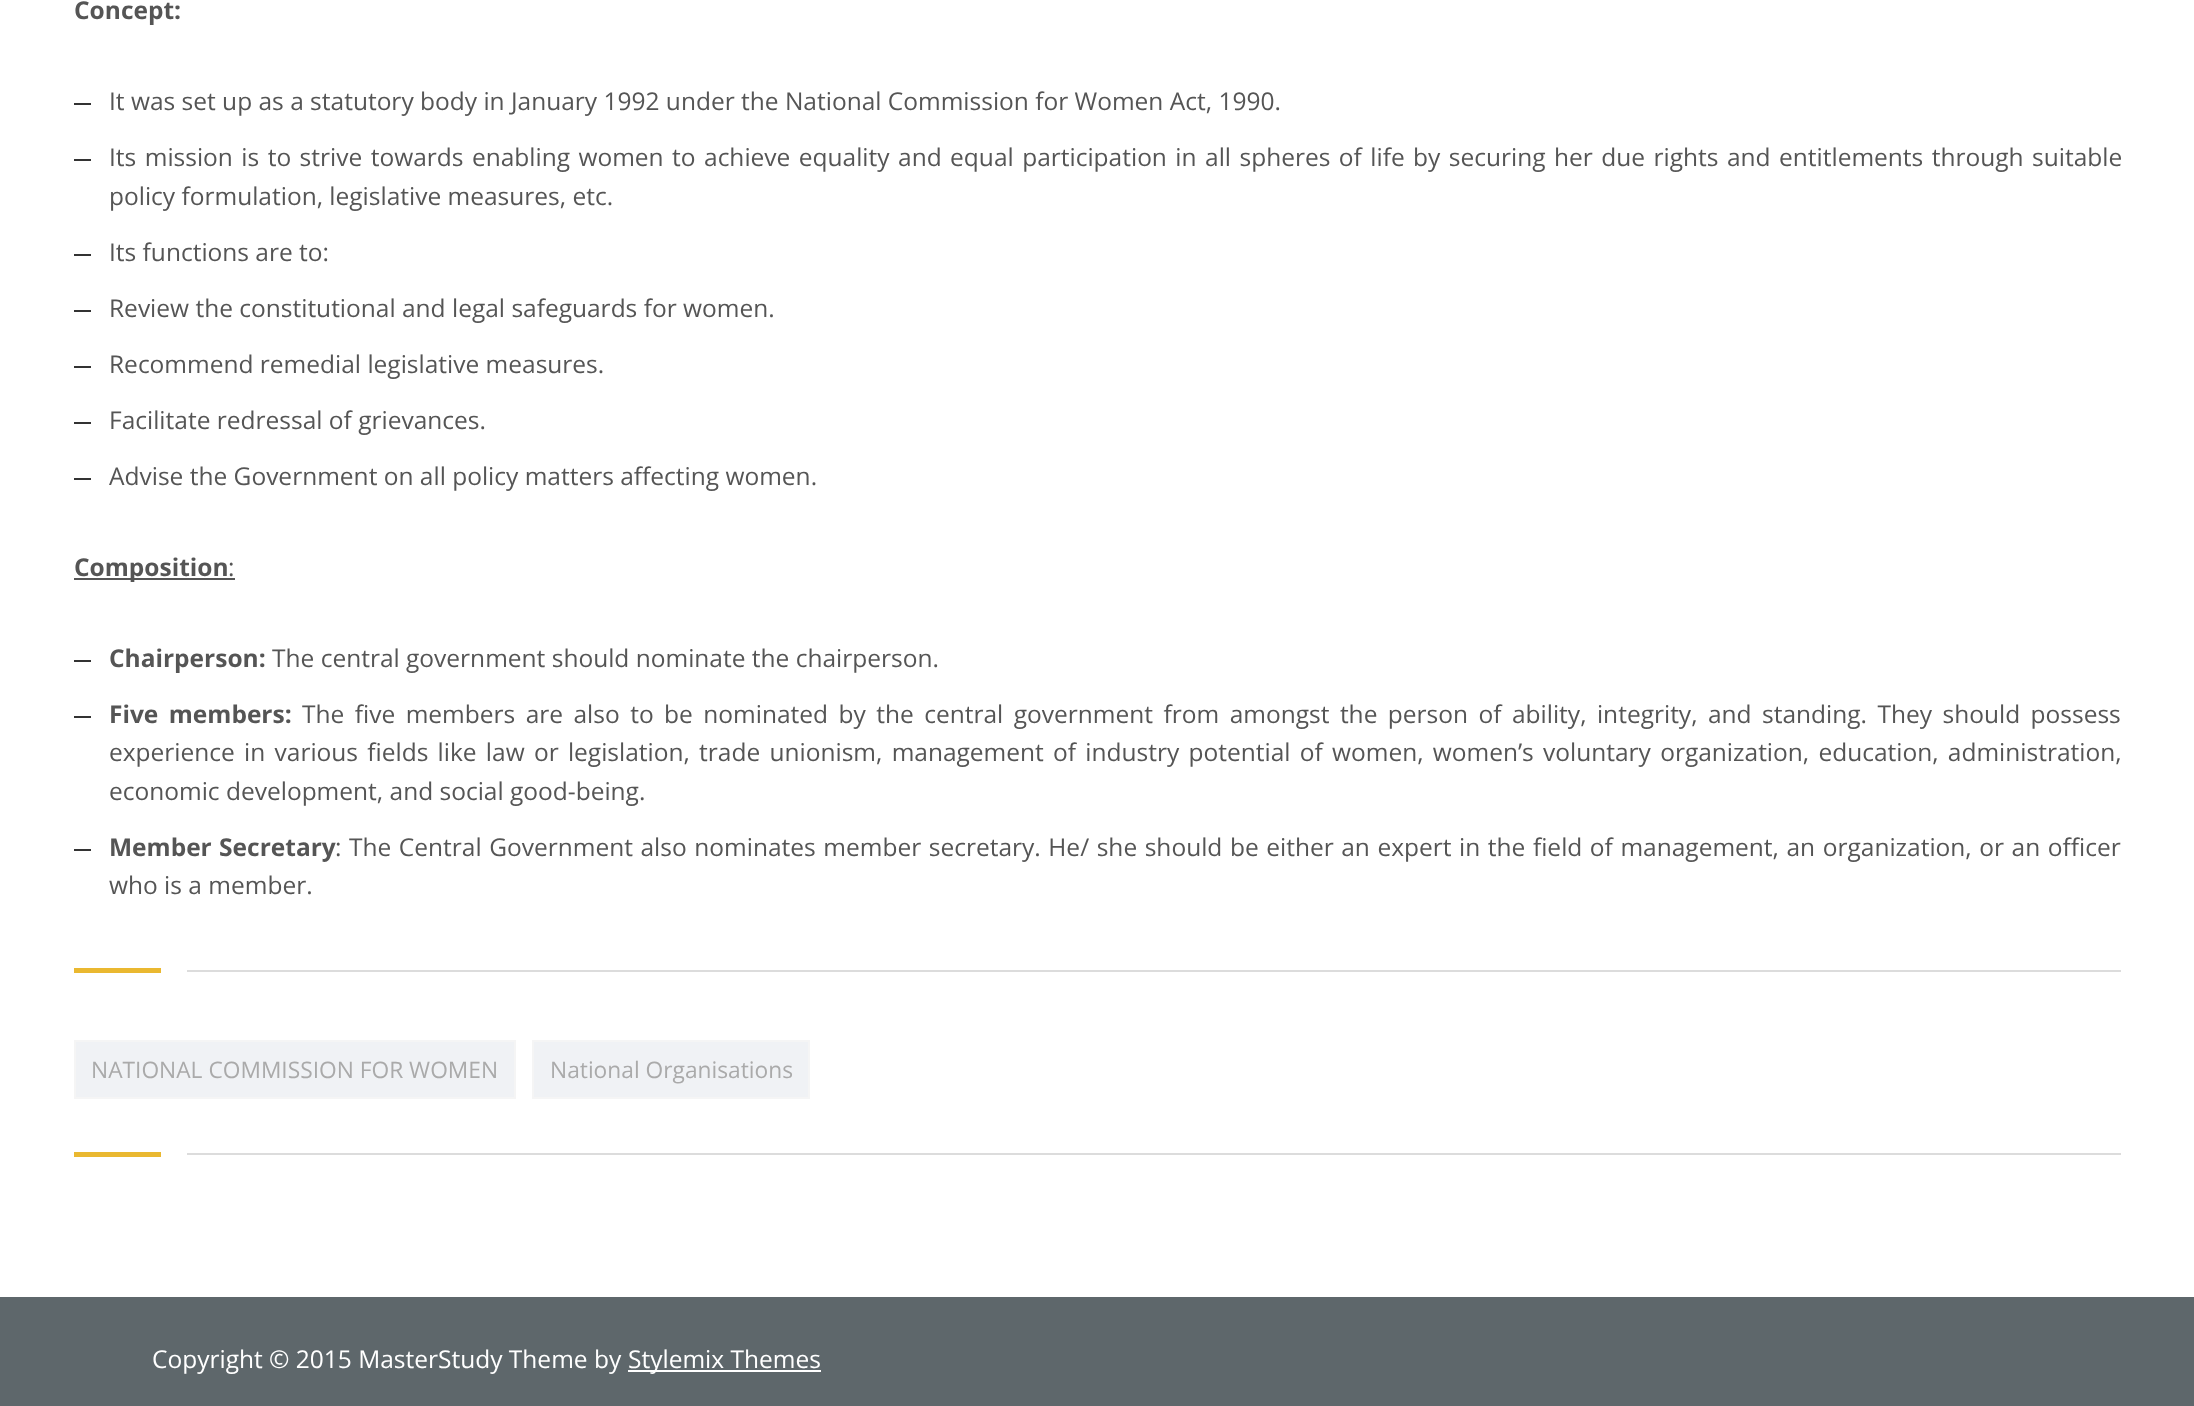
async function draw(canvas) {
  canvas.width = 2194
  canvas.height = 1406
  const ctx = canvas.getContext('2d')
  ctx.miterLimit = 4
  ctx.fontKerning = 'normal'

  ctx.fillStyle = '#fff'
  ctx.fillRect(0, 0, 2194, 1406)
  ctx.font = 'bold 24.5px Open Sans'
  ctx.fillStyle = '#555'
  ctx.fillText('Concept:', 74, 19)
  ctx.fillStyle = '#333'
  ctx.fillRect(74, 103, 17, 2)
  ctx.font = '24.5px Open Sans'
  ctx.fillStyle = '#555'
  ctx.fillText('It was set up as a statutory body in January 1992 under the National Commission for Women Act, 1990.', 109, 110)
  ctx.fillStyle = '#333'
  ctx.fillRect(74, 159, 17, 2)
  ctx.wordSpacing = '2.1px'
  ctx.fillStyle = '#555'
  ctx.fillText('Its mission is to strive towards enabling women to achieve equality and equal participation in all spheres of life by securing her due rights and entitlements through suitable', 109, 166)
  ctx.wordSpacing = '0px'
  ctx.fillText('policy formulation, legislative measures, etc.', 109, 205)
  ctx.fillStyle = '#333'
  ctx.fillRect(74, 254, 17, 2)
  ctx.fillStyle = '#555'
  ctx.fillText('Its functions are to:', 109, 261)
  ctx.fillStyle = '#333'
  ctx.fillRect(74, 310, 17, 2)
  ctx.fillStyle = '#555'
  ctx.fillText('Review the constitutional and legal safeguards for women.', 109, 317)
  ctx.fillStyle = '#333'
  ctx.fillRect(74, 366, 17, 2)
  ctx.fillStyle = '#555'
  ctx.fillText('Recommend remedial legislative measures.', 109, 373)
  ctx.fillStyle = '#333'
  ctx.fillRect(74, 422, 17, 2)
  ctx.fillStyle = '#555'
  ctx.fillText('Facilitate redressal of grievances.', 109, 429)
  ctx.fillStyle = '#333'
  ctx.fillRect(74, 478, 17, 2)
  ctx.fillStyle = '#555'
  ctx.fillText('Advise the Government on all policy matters affecting women.', 109, 485)
  ctx.fillRect(74, 578, 161, 2)
  ctx.font = 'bold 24.5px Open Sans'
  ctx.fillText('Composition', 74, 576)
  ctx.font = '24.5px Open Sans'
  ctx.fillText(':', 228, 576)
  ctx.fillStyle = '#333'
  ctx.fillRect(74, 660, 17, 2)
  ctx.font = 'bold 24.5px Open Sans'
  ctx.fillStyle = '#555'
  ctx.fillText('Chairperson:', 109, 667)
  ctx.font = '24.5px Open Sans'
  ctx.fillText('The central government should nominate the chairperson.', 272, 667)
  ctx.fillStyle = '#333'
  ctx.fillRect(74, 716, 17, 2)
  ctx.wordSpacing = '4.1px'
  ctx.font = 'bold 24.5px Open Sans'
  ctx.fillStyle = '#555'
  ctx.fillText('Five members:', 109, 723)
  ctx.font = '24.5px Open Sans'
  ctx.fillText('The five members are also to be nominated by the central government from amongst the person of ability, integrity, and standing. They should possess', 302, 723)
  ctx.wordSpacing = '2.9px'
  ctx.fillText('experience in various fields like law or legislation, trade unionism, management of industry potential of women, women’s voluntary organization, education, administration,', 109, 761)
  ctx.wordSpacing = '0px'
  ctx.fillText('economic development, and social good-being.', 109, 800)
  ctx.fillStyle = '#333'
  ctx.fillRect(74, 849, 17, 2)
  ctx.wordSpacing = '1px'
  ctx.font = 'bold 24.5px Open Sans'
  ctx.fillStyle = '#555'
  ctx.fillText('Member Secretary', 109, 856)
  ctx.wordSpacing = '1.2px'
  ctx.font = '24.5px Open Sans'
  ctx.fillText(': The Central Government also nominates member secretary. He/ she should be either an expert in the field of management, an organization, or an officer', 335, 856)
  ctx.wordSpacing = '0px'
  ctx.fillText('who is a member.', 109, 894)
  ctx.fillStyle = '#eab830'
  ctx.fillRect(74, 968, 87, 5)
  ctx.fillStyle = '#dcdcdc'
  ctx.fillRect(187, 970, 1934, 2)
  ctx.fillStyle = '#f0f2f5'
  ctx.beginPath()
  ctx.rect(75, 1041, 440, 57)
  ctx.fill()
  ctx.strokeStyle = '#f5f5f5'
  ctx.lineWidth = 2
  ctx.stroke()
  ctx.font = '22.75px Open Sans'
  ctx.fillStyle = '#aaa'
  ctx.fillText('NATIONAL COMMISSION FOR WOMEN', 91, 1078)
  ctx.fillStyle = '#f0f2f5'
  ctx.beginPath()
  ctx.rect(533, 1041, 276, 57)
  ctx.fill()
  ctx.stroke()
  ctx.fillStyle = '#aaa'
  ctx.fillText('National Organisations', 550, 1078)
  ctx.fillStyle = '#eab830'
  ctx.fillRect(74, 1152, 87, 5)
  ctx.fillStyle = '#dcdcdc'
  ctx.fillRect(187, 1153, 1934, 2)
  ctx.fillStyle = '#5e676b'
  ctx.fillRect(0, 1297, 2194, 109)
  ctx.font = '24.5px Open Sans'
  ctx.fillStyle = '#fff'
  ctx.fillText('Copyright © 2015 MasterStudy Theme by', 152, 1368)
  ctx.fillRect(628, 1370, 193, 2)
  ctx.fillText('Stylemix Themes', 628, 1368)
}

draw(document.querySelector('canvas'))
